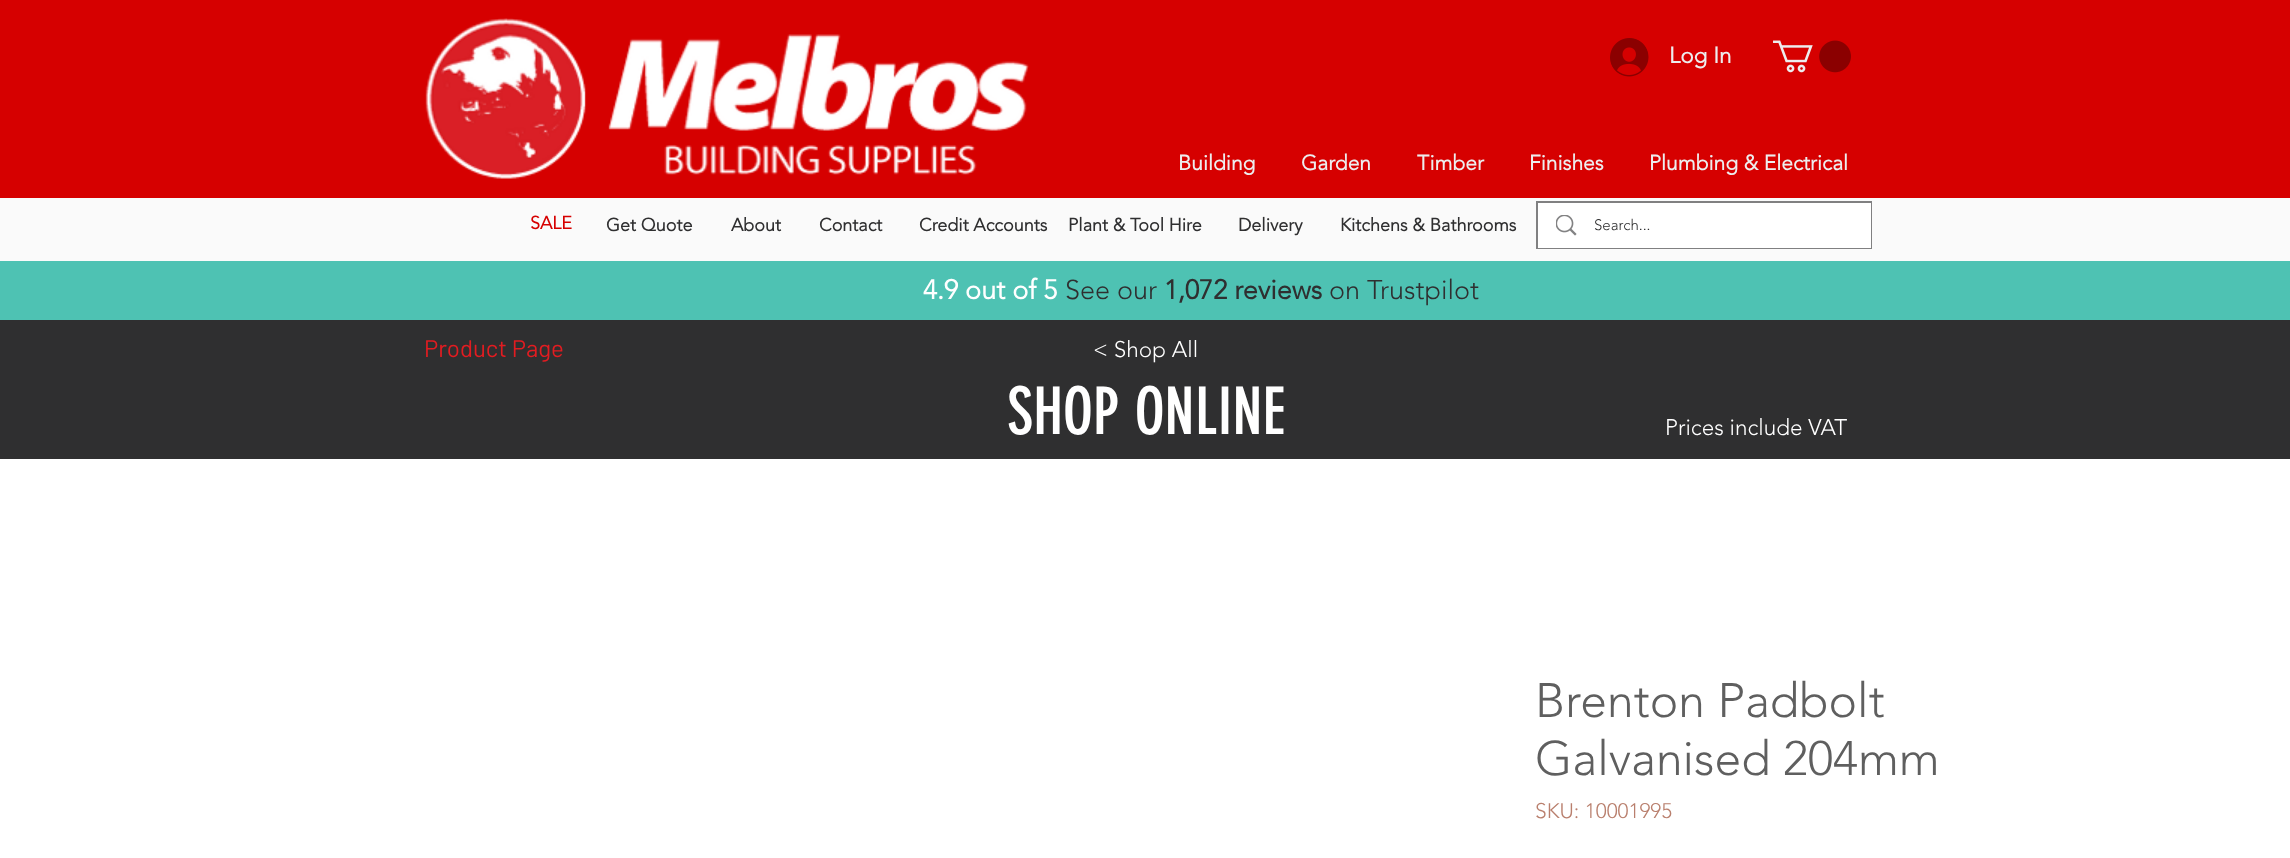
async function draw(canvas) {
  canvas.width = 2290
  canvas.height = 858
  const ctx = canvas.getContext('2d')
  ctx.miterLimit = 4
  ctx.fontKerning = 'normal'
  async function loadImage(src) {
    const img = new Image()
    img.src = src
    await img.decode()
    return img
  }

  ctx.fillStyle = '#fff'
  ctx.fillRect(0, 0, 2290, 858)
  ctx.fillStyle = '#d60000'
  ctx.fillRect(0, 0, 2290, 198)
  ctx.drawImage(await loadImage('image0.png'), 425, 18, 604, 161)
  ctx.drawImage(await loadImage('image1.png'), 1610, 38, 39, 39)
  ctx.font = 'bold 22.5px "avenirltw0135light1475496"'
  ctx.fillStyle = '#ededee'
  ctx.fillText('Log In', 1669, 63)
  ctx.drawImage(await loadImage('image2.png'), 1773, 40, 78, 33)
  ctx.font = 'bold 21px "avenirltw0135light1475496"'
  ctx.fillText('Building', 1178, 170)
  ctx.fillText('Garden', 1301, 170)
  ctx.fillText('Timber', 1417, 170)
  ctx.fillText('Finishes', 1529, 170)
  ctx.fillText('Plumbing & Electrical', 1649, 170)
  ctx.fillStyle = '#fafafa'
  ctx.fillRect(0, 198, 2290, 63)
  ctx.font = 'bold 18px "avenirltw0135light1475496"'
  ctx.fillStyle = '#d60000'
  ctx.fillText('SALE', 530, 229)
  ctx.fillStyle = '#2f2f30'
  ctx.fillText('Get Quote', 606, 231)
  ctx.fillText('About', 731, 231)
  ctx.fillText('Contact', 819, 231)
  ctx.fillText('Credit Accounts', 919, 231)
  ctx.fillText('Plant & Tool Hire', 1068, 231)
  ctx.fillText('Delivery', 1238, 231)
  ctx.fillText('Kitchens & Bathrooms', 1340, 231)
  ctx.strokeStyle = '#808081'
  ctx.lineWidth = 2
  ctx.strokeRect(1537, 202, 334, 46)
  ctx.fillStyle = '#fff'
  ctx.fillRect(1538, 203, 333, 45)
  ctx.drawImage(await loadImage('image3.png'), 1556, 215, 21, 21)
  ctx.save()
  ctx.beginPath()
  ctx.rect(1595, 216, 213, 18)
  ctx.clip()
  ctx.font = '300 15px "avenirltw0135light1475496"'
  ctx.fillStyle = '#2f2f30'
  ctx.fillText('Search...', 1594, 230)
  ctx.restore()
  ctx.fillStyle = '#4ec2b3'
  ctx.fillRect(0, 261, 2290, 59)
  ctx.font = 'bold 27px "avenirltw0135light1475496"'
  ctx.fillStyle = '#fff'
  ctx.fillText('4.9 out of 5', 923, 299)
  ctx.font = '300 27px "avenirltw0135light1475496"'
  ctx.fillStyle = '#2f2f30'
  ctx.fillText('See our', 1065, 299)
  ctx.font = 'bold 27px "avenirltw0135light1475496"'
  ctx.fillText('1,072 reviews', 1164, 299)
  ctx.font = '300 27px "avenirltw0135light1475496"'
  ctx.fillText('on Trustpilot', 1329, 299)
  ctx.fillRect(0, 320, 2290, 139)
  ctx.font = '24px Barlow'
  ctx.fillStyle = '#e21c21'
  ctx.fillText('Product Page', 424, 357)
  ctx.font = '300 22.5px "avenirltw0135light1475496"'
  ctx.fillStyle = '#fff'
  ctx.fillText('< Shop All', 1093, 357)
  ctx.font = '64.5px "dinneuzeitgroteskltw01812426"'
  ctx.fillText('SHOP ONLINE', 1007, 434)
  ctx.font = '300 22.5px "avenirltw0135light1475496"'
  ctx.fillText('Prices include VAT', 1665, 435)
  ctx.font = '300 48px "avenirltw0135light1475496"'
  ctx.fillStyle = '#5f5f5f'
  ctx.fillText('Brenton Padbolt', 1535, 717)
  ctx.fillText('Galvanised 204mm', 1535, 775)
  ctx.font = '300 21px "avenirltw0135light1475496"'
  ctx.fillStyle = '#b97f6d'
  ctx.fillText('SKU: 10001995', 1535, 818)
}

draw(document.querySelector('canvas'))
